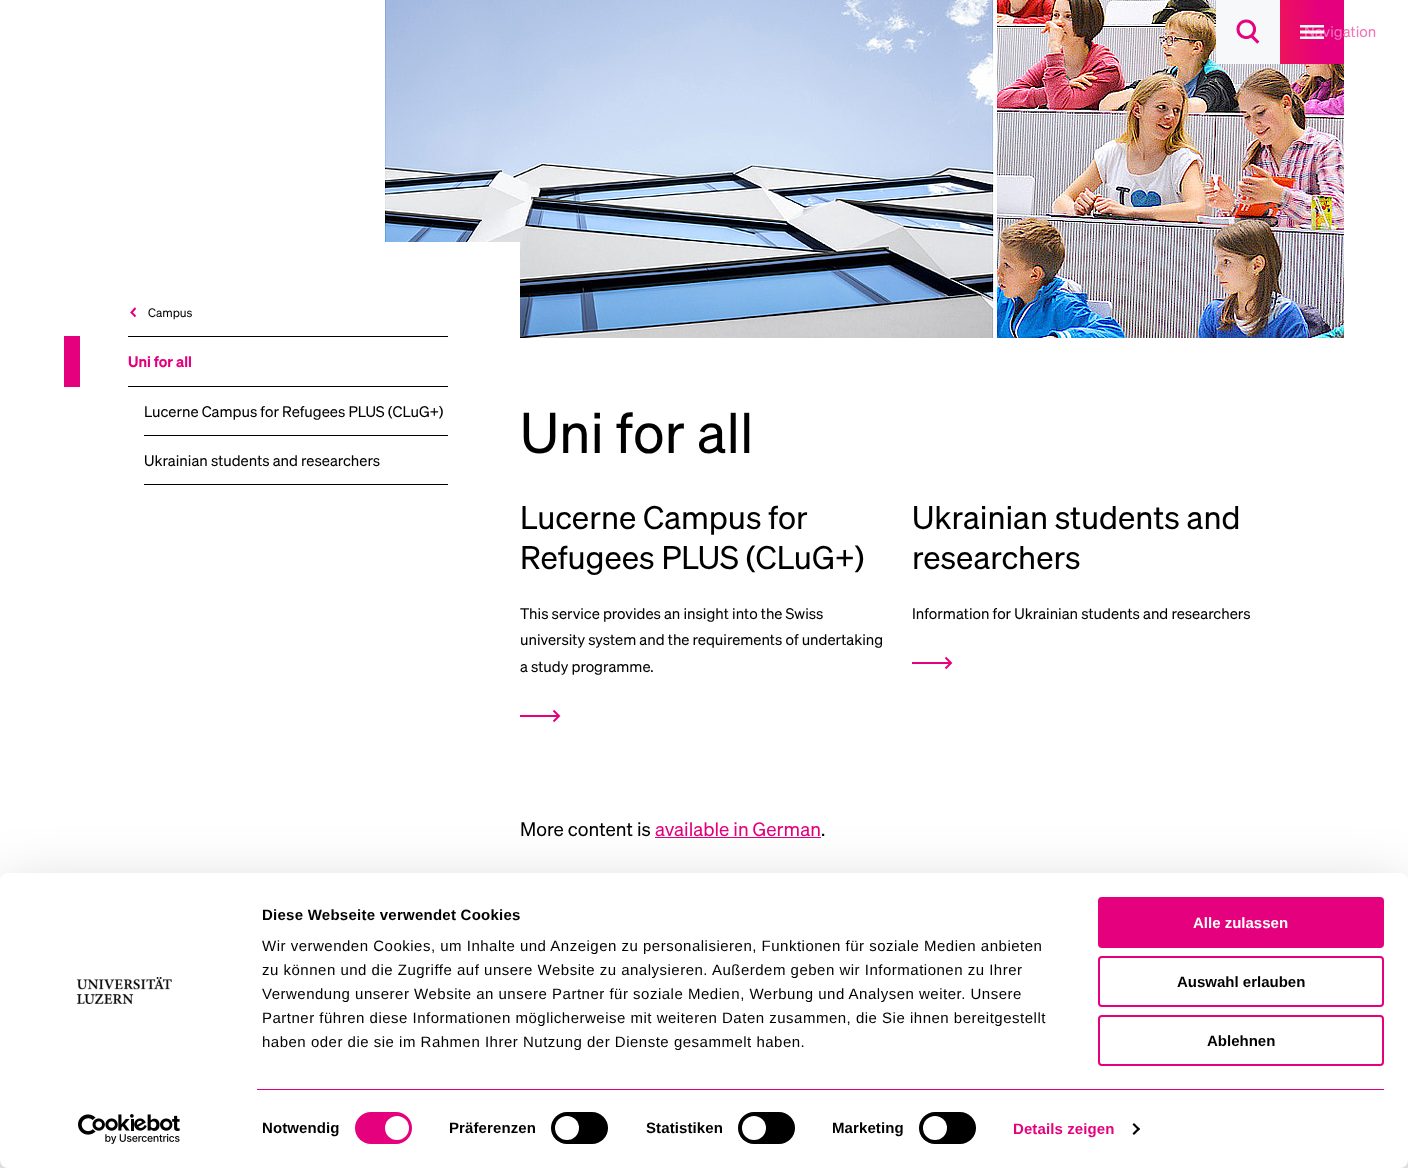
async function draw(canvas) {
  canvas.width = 1408
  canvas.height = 1168
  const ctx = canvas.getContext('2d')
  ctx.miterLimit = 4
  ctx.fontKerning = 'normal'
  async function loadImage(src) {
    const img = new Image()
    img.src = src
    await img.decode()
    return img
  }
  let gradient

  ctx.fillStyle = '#fff'
  ctx.fillRect(0, 0, 1408, 1168)
  ctx.drawImage(await loadImage('image0.png'), 384, 0, 960, 338)
  ctx.fillStyle = '#f7f8fa'
  ctx.fillRect(1216, 0, 64, 64)
  ctx.drawImage(await loadImage('image1.png'), 1236, 19, 24, 25)
  gradient = ctx.createLinearGradient(1346, 29, 1278, 35)
  gradient.addColorStop(0.37, '#e5007d')
  gradient.addColorStop(1, '#ed145b')
  ctx.fillStyle = gradient
  ctx.fillRect(1280, 0, 64, 63)
  ctx.font = '15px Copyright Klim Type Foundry'
  ctx.fillStyle = '#f176b7'
  ctx.fillText('Navigation', 1304, 37)
  ctx.drawImage(await loadImage('image2.png'), 1300, 25, 24, 14)
  gradient = ctx.createLinearGradient(1344, 61, 1280, 66)
  gradient.addColorStop(0.37, '#e5007d')
  gradient.addColorStop(1, '#ed145b')
  ctx.fillStyle = gradient
  ctx.fillRect(1280, 63, 64, 1)
  ctx.fillStyle = '#fff'
  ctx.fillRect(384, 242, 136, 96)
  ctx.beginPath()
  ctx.moveTo(135.5, 308)
  ctx.lineTo(131.5, 312.5)
  ctx.lineTo(135.5, 316.5)
  ctx.strokeStyle = '#e5007d'
  ctx.lineWidth = 2
  ctx.stroke()
  ctx.font = '12px Copyright Klim Type Foundry'
  ctx.fillStyle = '#000'
  ctx.fillText('Campus', 148, 317)
  ctx.fillRect(128, 336, 320, 1)
  ctx.fillRect(128, 386, 320, 1)
  ctx.fillStyle = '#e5007d'
  ctx.fillRect(64, 336, 16, 51)
  ctx.font = '600 15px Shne'
  ctx.fillText('Uni for all', 128, 367)
  ctx.fillStyle = '#000'
  ctx.fillRect(144, 435, 304, 1)
  ctx.font = '15px Copyright Klim Type Foundry'
  ctx.fillText('Lucerne Campus for Refugees PLUS (CLuG+)', 144, 417)
  ctx.fillRect(144, 484, 304, 1)
  ctx.fillText('Ukrainian students and researchers', 144, 466)
  ctx.font = '56px Copyright Klim Type Foundry'
  ctx.fillText('Uni for all', 520, 453)
  ctx.font = '32px Copyright Klim Type Foundry'
  ctx.fillText('Lucerne Campus for', 520, 529)
  ctx.fillText('Refugees PLUS (CLuG+)', 520, 569)
  ctx.font = '15px Copyright Klim Type Foundry'
  ctx.fillText('This service provides an insight into the Swiss', 520, 619)
  ctx.fillText('university system and the requirements of undertaking', 520, 645)
  ctx.fillText('a study programme.', 520, 672)
  ctx.beginPath()
  ctx.moveTo(553.5, 721.5)
  ctx.lineTo(559, 716)
  ctx.lineTo(553.5, 710.5)
  ctx.stroke()
  ctx.fillStyle = '#e5007d'
  ctx.fillRect(520, 715, 38, 2)
  ctx.font = '32px Copyright Klim Type Foundry'
  ctx.fillStyle = '#000'
  ctx.fillText('Ukrainian students and', 912, 529)
  ctx.fillText('researchers', 912, 569)
  ctx.font = '15px Copyright Klim Type Foundry'
  ctx.fillText('Information for Ukrainian students and researchers', 912, 619)
  ctx.beginPath()
  ctx.moveTo(945.5, 668.5)
  ctx.lineTo(951, 663)
  ctx.lineTo(945.5, 657.5)
  ctx.stroke()
  ctx.fillStyle = '#e5007d'
  ctx.fillRect(912, 662, 38, 2)
  ctx.font = '19px Copyright Klim Type Foundry'
  ctx.fillStyle = '#000'
  ctx.fillText('More content is', 520, 836)
  ctx.fillStyle = '#e5007d'
  ctx.fillText('available in German', 655, 836)
  ctx.fillRect(655, 837, 166, 1)
  ctx.fillStyle = '#000'
  ctx.fillText('.', 821, 836)
  ctx.fillStyle = '#0000004d'
  ctx.filter = 'blur(35px)'
  ctx.beginPath()
  ctx.roundRect(0, 903, 1408, 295, 8)
  ctx.fill()
  ctx.filter = 'none'
  ctx.fillStyle = '#fff'
  ctx.beginPath()
  ctx.roundRect(0, 873, 1408, 295, 8)
  ctx.fill()
  ctx.drawImage(await loadImage('image3.png'), 76, 977, 96, 27)
  ctx.drawImage(await loadImage('image4.png'), 78, 1114, 102, 30)
  ctx.letterSpacing = '0.25px'
  ctx.font = 'bold 15px Liberation Sans'
  ctx.fillStyle = '#000'
  ctx.fillText('Diese Webseite verwendet Cookies', 262, 920)
  ctx.letterSpacing = '0.5px'
  ctx.font = '15px Liberation Sans'
  ctx.fillText('Wir verwenden Cookies, um Inhalte und Anzeigen zu personalisieren, Funktionen für soziale Medien anbieten', 262, 951)
  ctx.fillText('zu können und die Zugriffe auf unsere Website zu analysieren. Außerdem geben wir Informationen zu Ihrer', 262, 975)
  ctx.fillText('Verwendung unserer Website an unsere Partner für soziale Medien, Werbung und Analysen weiter. Unsere', 262, 999)
  ctx.fillText('Partner führen diese Informationen möglicherweise mit weiteren Daten zusammen, die Sie ihnen bereitgestellt', 262, 1023)
  ctx.fillText('haben oder die sie im Rahmen Ihrer Nutzung der Dienste gesammelt haben.', 262, 1047)
  ctx.fillStyle = '#e5007d'
  ctx.fillRect(257, 1089, 1127, 1)
  ctx.letterSpacing = '0.1px'
  ctx.font = 'bold 15px Liberation Sans'
  ctx.fillStyle = '#000'
  ctx.fillText('Notwendig', 262, 1133)
  ctx.fillStyle = '#e5007d'
  ctx.beginPath()
  ctx.roundRect(355, 1112, 57, 32, 16)
  ctx.fill()
  ctx.fillStyle = '#fff'
  ctx.beginPath()
  ctx.arc(397, 1128, 12, 0, 2 * Math.PI)
  ctx.fill()
  ctx.fillStyle = '#000'
  ctx.fillText('Präferenzen', 449, 1133)
  ctx.beginPath()
  ctx.roundRect(551, 1112, 57, 32, 16)
  ctx.fill()
  ctx.fillStyle = '#fff'
  ctx.beginPath()
  ctx.arc(567, 1128, 12, 0, 2 * Math.PI)
  ctx.fill()
  ctx.fillStyle = '#000'
  ctx.fillText('Statistiken', 646, 1133)
  ctx.beginPath()
  ctx.roundRect(738, 1112, 57, 32, 16)
  ctx.fill()
  ctx.fillStyle = '#fff'
  ctx.beginPath()
  ctx.arc(754, 1128, 12, 0, 2 * Math.PI)
  ctx.fill()
  ctx.fillStyle = '#000'
  ctx.fillText('Marketing', 832, 1133)
  ctx.beginPath()
  ctx.roundRect(919, 1112, 57, 32, 16)
  ctx.fill()
  ctx.fillStyle = '#fff'
  ctx.beginPath()
  ctx.arc(935, 1128, 12, 0, 2 * Math.PI)
  ctx.fill()
  ctx.fillStyle = '#e5007d'
  ctx.fillText('Details zeigen', 1013, 1134)
  ctx.fillStyle = '#000'
  ctx.beginPath()
  ctx.moveTo(1134, 1123)
  ctx.lineTo(1140, 1129)
  ctx.lineTo(1138.5, 1130.5)
  ctx.lineTo(1132.5, 1124.5)
  ctx.closePath()
  ctx.fill()
  ctx.beginPath()
  ctx.moveTo(1138.5, 1127.5)
  ctx.lineTo(1140, 1129)
  ctx.lineTo(1134, 1135)
  ctx.lineTo(1132.5, 1133.5)
  ctx.closePath()
  ctx.fill()
  ctx.fillStyle = '#e5007d'
  ctx.beginPath()
  ctx.roundRect(1099, 898, 284, 49, 3)
  ctx.fill()
  ctx.stroke()
  ctx.letterSpacing = '0px'
  ctx.fillStyle = '#fff'
  ctx.fillText('Alle zulassen', 1193, 928)
  ctx.beginPath()
  ctx.roundRect(1099, 957, 284, 49, 3)
  ctx.stroke()
  ctx.fillStyle = '#000'
  ctx.fillText('Auswahl erlauben', 1177, 987)
  ctx.beginPath()
  ctx.roundRect(1099, 1016, 284, 49, 3)
  ctx.stroke()
  ctx.fillText('Ablehnen', 1207, 1046)
}

draw(document.querySelector('canvas'))
